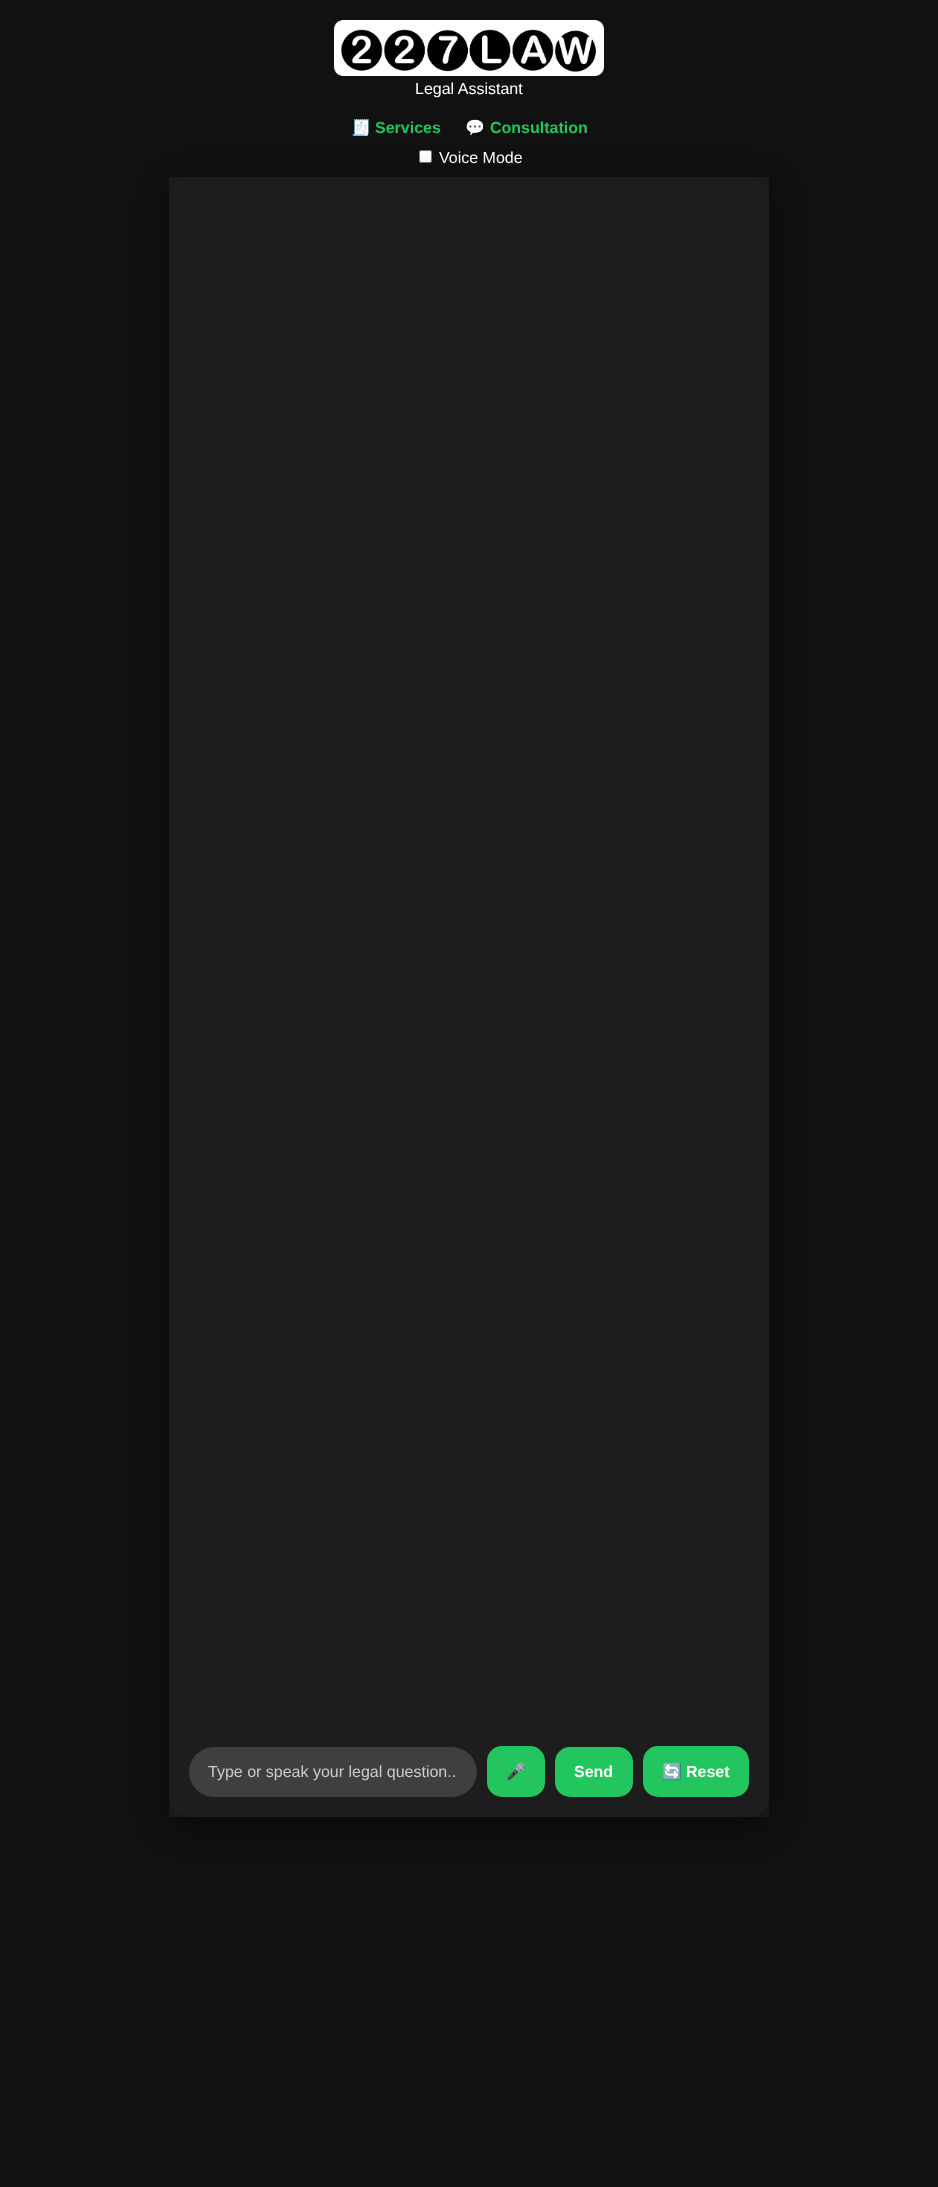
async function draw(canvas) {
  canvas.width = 938
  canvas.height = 2187
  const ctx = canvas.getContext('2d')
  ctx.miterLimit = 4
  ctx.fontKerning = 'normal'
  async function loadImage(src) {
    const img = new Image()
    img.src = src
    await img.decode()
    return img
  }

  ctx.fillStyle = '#111'
  ctx.fillRect(0, 0, 938, 2187)
  ctx.drawImage(await loadImage('image0.png'), 334, 20, 270, 56)
  ctx.font = '16px Liberation Sans'
  ctx.fillStyle = '#fff'
  ctx.fillText('Legal Assistant', 415, 94)
  ctx.font = 'bold 16px Noto Color Emoji'
  ctx.fillStyle = '#22c55e'
  ctx.fillText('🧾', 351, 133)
  ctx.font = 'bold 16px Liberation Sans'
  ctx.fillText('Services', 375, 133)
  ctx.font = 'bold 16px Noto Color Emoji'
  ctx.fillText('💬', 465, 133)
  ctx.font = 'bold 16px Liberation Sans'
  ctx.fillText('Consultation', 490, 133)
  ctx.fillStyle = '#fff'
  ctx.beginPath()
  ctx.roundRect(419.5, 150.5, 12, 12, 1.5)
  ctx.fill()
  ctx.strokeStyle = '#767676'
  ctx.stroke()
  ctx.font = '16px Liberation Sans'
  ctx.fillText('Voice Mode', 439, 163)
  ctx.save()
  ctx.beginPath()
  ctx.moveTo(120, 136)
  ctx.lineTo(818, 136)
  ctx.lineTo(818, 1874)
  ctx.lineTo(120, 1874)
  ctx.closePath()
  ctx.moveTo(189, 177)
  ctx.lineTo(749, 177)
  ctx.bezierCurveTo(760, 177, 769, 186, 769, 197)
  ctx.lineTo(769, 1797)
  ctx.bezierCurveTo(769, 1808, 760, 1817, 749, 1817)
  ctx.lineTo(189, 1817)
  ctx.bezierCurveTo(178, 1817, 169, 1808, 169, 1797)
  ctx.lineTo(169, 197)
  ctx.bezierCurveTo(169, 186, 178, 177, 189, 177)
  ctx.closePath()
  ctx.clip('evenodd')
  ctx.fillStyle = '#00000099'
  ctx.filter = 'blur(16px)'
  ctx.beginPath()
  ctx.roundRect(169, 185, 600, 1640, 20)
  ctx.fill()
  ctx.filter = 'none'
  ctx.restore()
  ctx.fillStyle = '#ffffff0d'
  ctx.fillRect(169, 177, 600, 1640)
  ctx.fillStyle = '#3f3f3f'
  ctx.beginPath()
  ctx.roundRect(189, 1747, 288, 50, 25)
  ctx.fill()
  ctx.fillStyle = '#ccc'
  ctx.fillText('Type or speak your legal question..', 208, 1777)
  ctx.fillStyle = '#22c55e'
  ctx.beginPath()
  ctx.roundRect(487, 1746, 58, 51, 15)
  ctx.fill()
  ctx.font = 'bold 16px Noto Color Emoji'
  ctx.fillStyle = '#fff'
  ctx.fillText('🎤', 506, 1777)
  ctx.fillStyle = '#22c55e'
  ctx.beginPath()
  ctx.roundRect(555, 1747, 78, 50, 15)
  ctx.fill()
  ctx.font = 'bold 16px Liberation Sans'
  ctx.fillStyle = '#fff'
  ctx.fillText('Send', 574, 1777)
  ctx.fillStyle = '#22c55e'
  ctx.beginPath()
  ctx.roundRect(643, 1746, 106, 51, 15)
  ctx.fill()
  ctx.font = 'bold 16px Noto Color Emoji'
  ctx.fillStyle = '#fff'
  ctx.fillText('🔄', 662, 1777)
  ctx.font = 'bold 16px Liberation Sans'
  ctx.fillText('Reset', 686, 1777)
}

draw(document.querySelector('canvas'))
